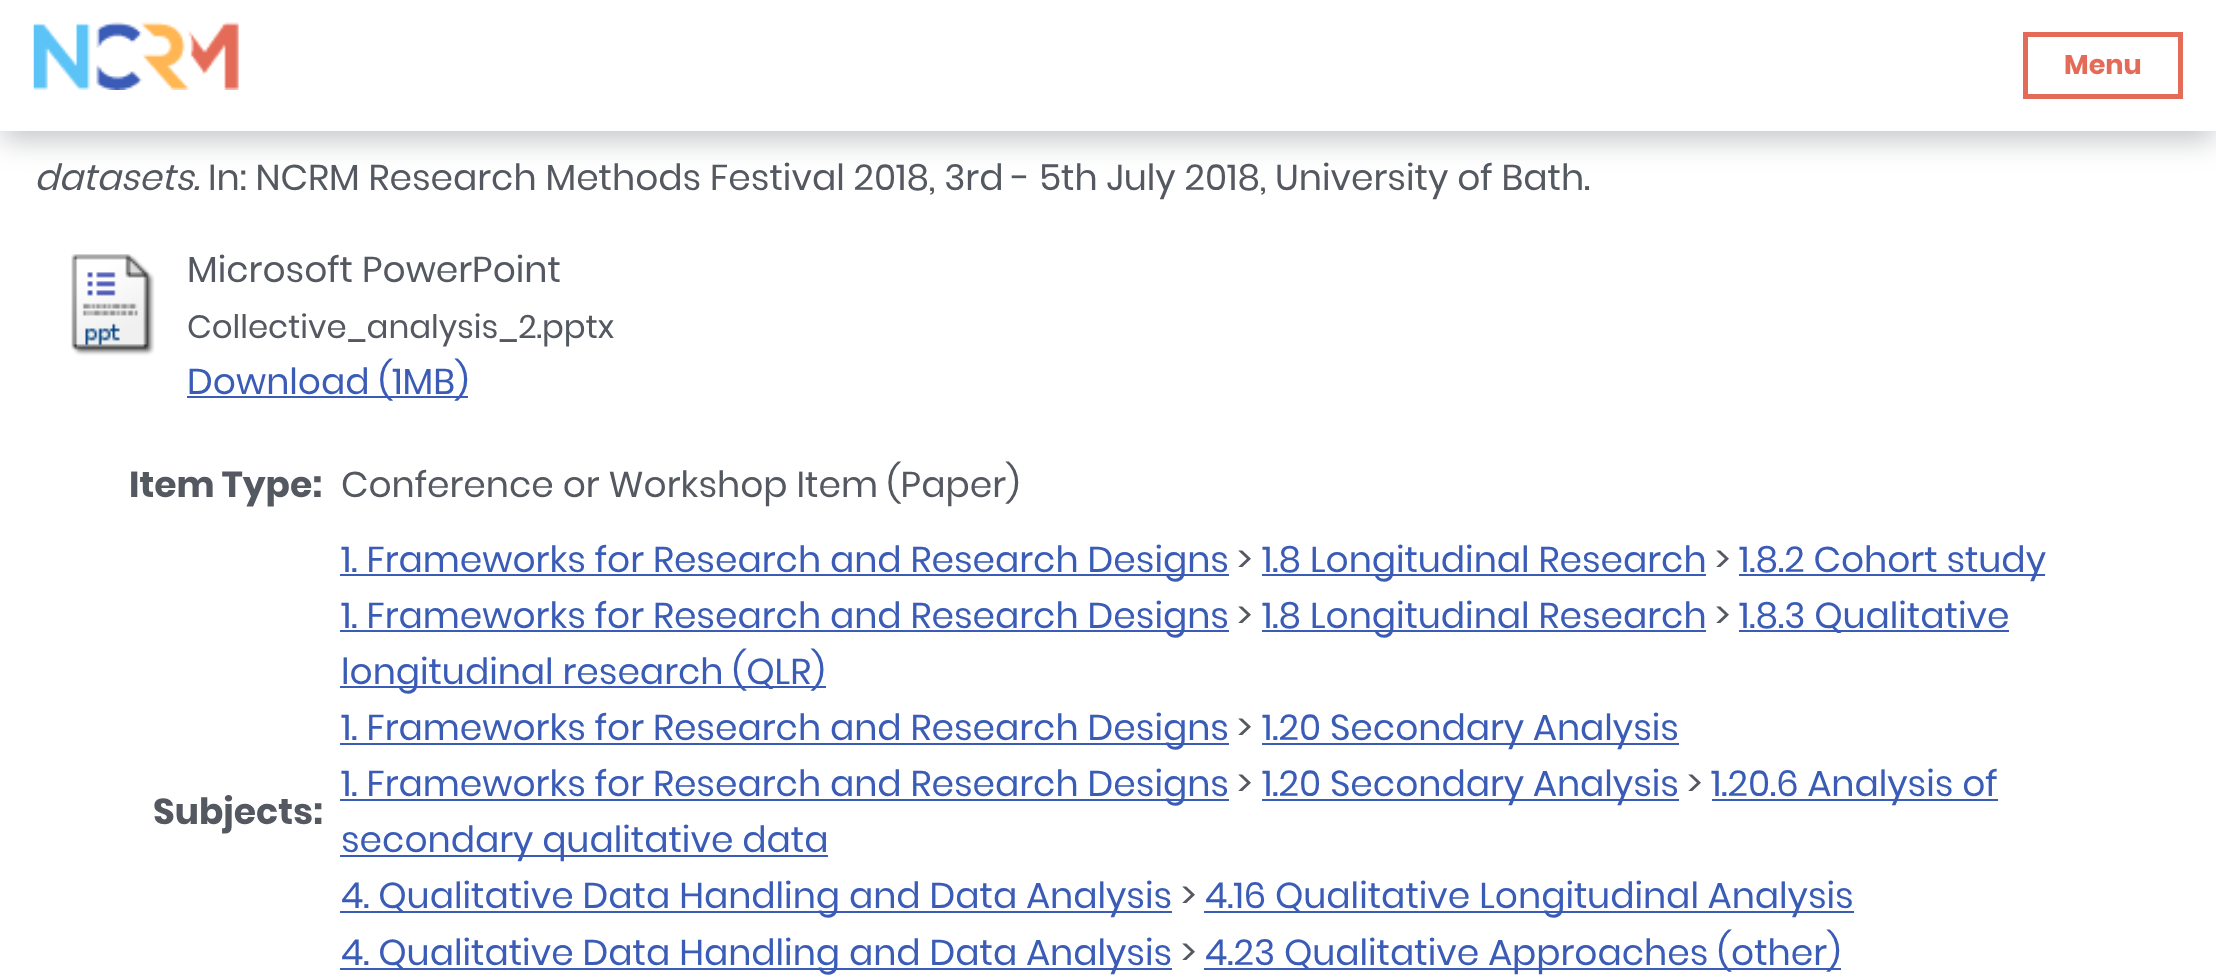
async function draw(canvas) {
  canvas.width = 2216
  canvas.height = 977
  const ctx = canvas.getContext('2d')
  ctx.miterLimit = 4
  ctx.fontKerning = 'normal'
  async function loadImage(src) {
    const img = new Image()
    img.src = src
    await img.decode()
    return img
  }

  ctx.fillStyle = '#fff'
  ctx.fillRect(0, 0, 2216, 977)
  ctx.fillStyle = '#54586059'
  ctx.filter = 'blur(14.5px)'
  ctx.beginPath()
  ctx.rect(2, 14, 2212, 126)
  ctx.fill()
  ctx.filter = 'none'
  ctx.fillStyle = '#fff'
  ctx.fillRect(0, 0, 2216, 131)
  ctx.drawImage(await loadImage('image0.png'), 33, 22, 206, 68)
  ctx.strokeStyle = '#e56b59'
  ctx.lineWidth = 5
  ctx.strokeRect(2025.5, 34.5, 155, 62)
  ctx.font = 'bold 27px Poppins'
  ctx.fillStyle = '#e56b59'
  ctx.fillText('Menu', 2064, 74)
  ctx.font = 'italic 36px Poppins'
  ctx.fillStyle = '#545860'
  ctx.fillText('datasets.', 34, 190)
  ctx.font = '36px Poppins'
  ctx.fillText('In: NCRM Research Methods Festival 2018, 3rd - 5th July 2018, University of Bath.', 208, 190)
  ctx.drawImage(await loadImage('image1.png'), 71, 254, 84, 102)
  ctx.fillText('Microsoft PowerPoint', 187, 282)
  ctx.font = '32.4px Poppins'
  ctx.fillText('Collective_analysis_2.pptx', 187, 338)
  ctx.fillStyle = '#3a5cb7'
  ctx.fillRect(187, 396, 281, 2)
  ctx.font = '36px Poppins'
  ctx.fillText('Download (1MB)', 187, 394)
  ctx.font = 'bold 36px Poppins'
  ctx.fillStyle = '#545860'
  ctx.fillText('Item Type:', 129, 497)
  ctx.font = '36px Poppins'
  ctx.fillText('Conference or Workshop Item (Paper)', 341, 497)
  ctx.font = 'bold 36px Poppins'
  ctx.fillText('Subjects:', 153, 824)
  ctx.fillStyle = '#3a5cb7'
  ctx.fillRect(340, 574, 889, 2)
  ctx.font = '36px Poppins'
  ctx.fillText('1. Frameworks for Research and Research Designs', 341, 572)
  ctx.fillStyle = '#545860'
  ctx.fillText('>', 1237, 572)
  ctx.fillStyle = '#3a5cb7'
  ctx.fillRect(1262, 574, 444, 2)
  ctx.fillText('1.8 Longitudinal Research', 1262, 572)
  ctx.fillStyle = '#545860'
  ctx.fillText('>', 1715, 572)
  ctx.fillStyle = '#3a5cb7'
  ctx.fillRect(1739, 574, 306, 2)
  ctx.fillText('1.8.2 Cohort study', 1739, 572)
  ctx.fillRect(340, 630, 889, 2)
  ctx.fillText('1. Frameworks for Research and Research Designs', 341, 628)
  ctx.fillStyle = '#545860'
  ctx.fillText('>', 1237, 628)
  ctx.fillStyle = '#3a5cb7'
  ctx.fillRect(1262, 630, 444, 2)
  ctx.fillText('1.8 Longitudinal Research', 1262, 628)
  ctx.fillStyle = '#545860'
  ctx.fillText('>', 1715, 628)
  ctx.fillStyle = '#3a5cb7'
  ctx.fillRect(1739, 630, 270, 2)
  ctx.fillText('1.8.3 Qualitative', 1739, 628)
  ctx.fillRect(340, 686, 486, 2)
  ctx.fillText('longitudinal research (QLR)', 341, 684)
  ctx.fillRect(340, 743, 889, 2)
  ctx.fillText('1. Frameworks for Research and Research Designs', 341, 740)
  ctx.fillStyle = '#545860'
  ctx.fillText('>', 1237, 740)
  ctx.fillStyle = '#3a5cb7'
  ctx.fillRect(1262, 743, 417, 2)
  ctx.fillText('1.20 Secondary Analysis', 1262, 740)
  ctx.fillRect(340, 799, 889, 2)
  ctx.fillText('1. Frameworks for Research and Research Designs', 341, 796)
  ctx.fillStyle = '#545860'
  ctx.fillText('>', 1237, 796)
  ctx.fillStyle = '#3a5cb7'
  ctx.fillRect(1262, 799, 417, 2)
  ctx.fillText('1.20 Secondary Analysis', 1262, 796)
  ctx.fillStyle = '#545860'
  ctx.fillText('>', 1687, 796)
  ctx.fillStyle = '#3a5cb7'
  ctx.fillRect(1712, 799, 286, 2)
  ctx.fillText('1.20.6 Analysis of', 1711, 796)
  ctx.fillRect(340, 855, 488, 2)
  ctx.fillText('secondary qualitative data', 341, 852)
  ctx.fillRect(340, 911, 832, 2)
  ctx.fillText('4. Qualitative Data Handling and Data Analysis', 341, 908)
  ctx.fillStyle = '#545860'
  ctx.fillText('>', 1181, 908)
  ctx.fillStyle = '#3a5cb7'
  ctx.fillRect(1204, 911, 650, 2)
  ctx.fillText('4.16 Qualitative Longitudinal Analysis', 1205, 908)
  ctx.fillRect(340, 968, 832, 2)
  ctx.fillText('4. Qualitative Data Handling and Data Analysis', 341, 965)
  ctx.fillStyle = '#545860'
  ctx.fillText('>', 1181, 965)
  ctx.fillStyle = '#3a5cb7'
  ctx.fillRect(1204, 968, 637, 2)
  ctx.fillText('4.23 Qualitative Approaches (other)', 1205, 965)
}

draw(document.querySelector('canvas'))
